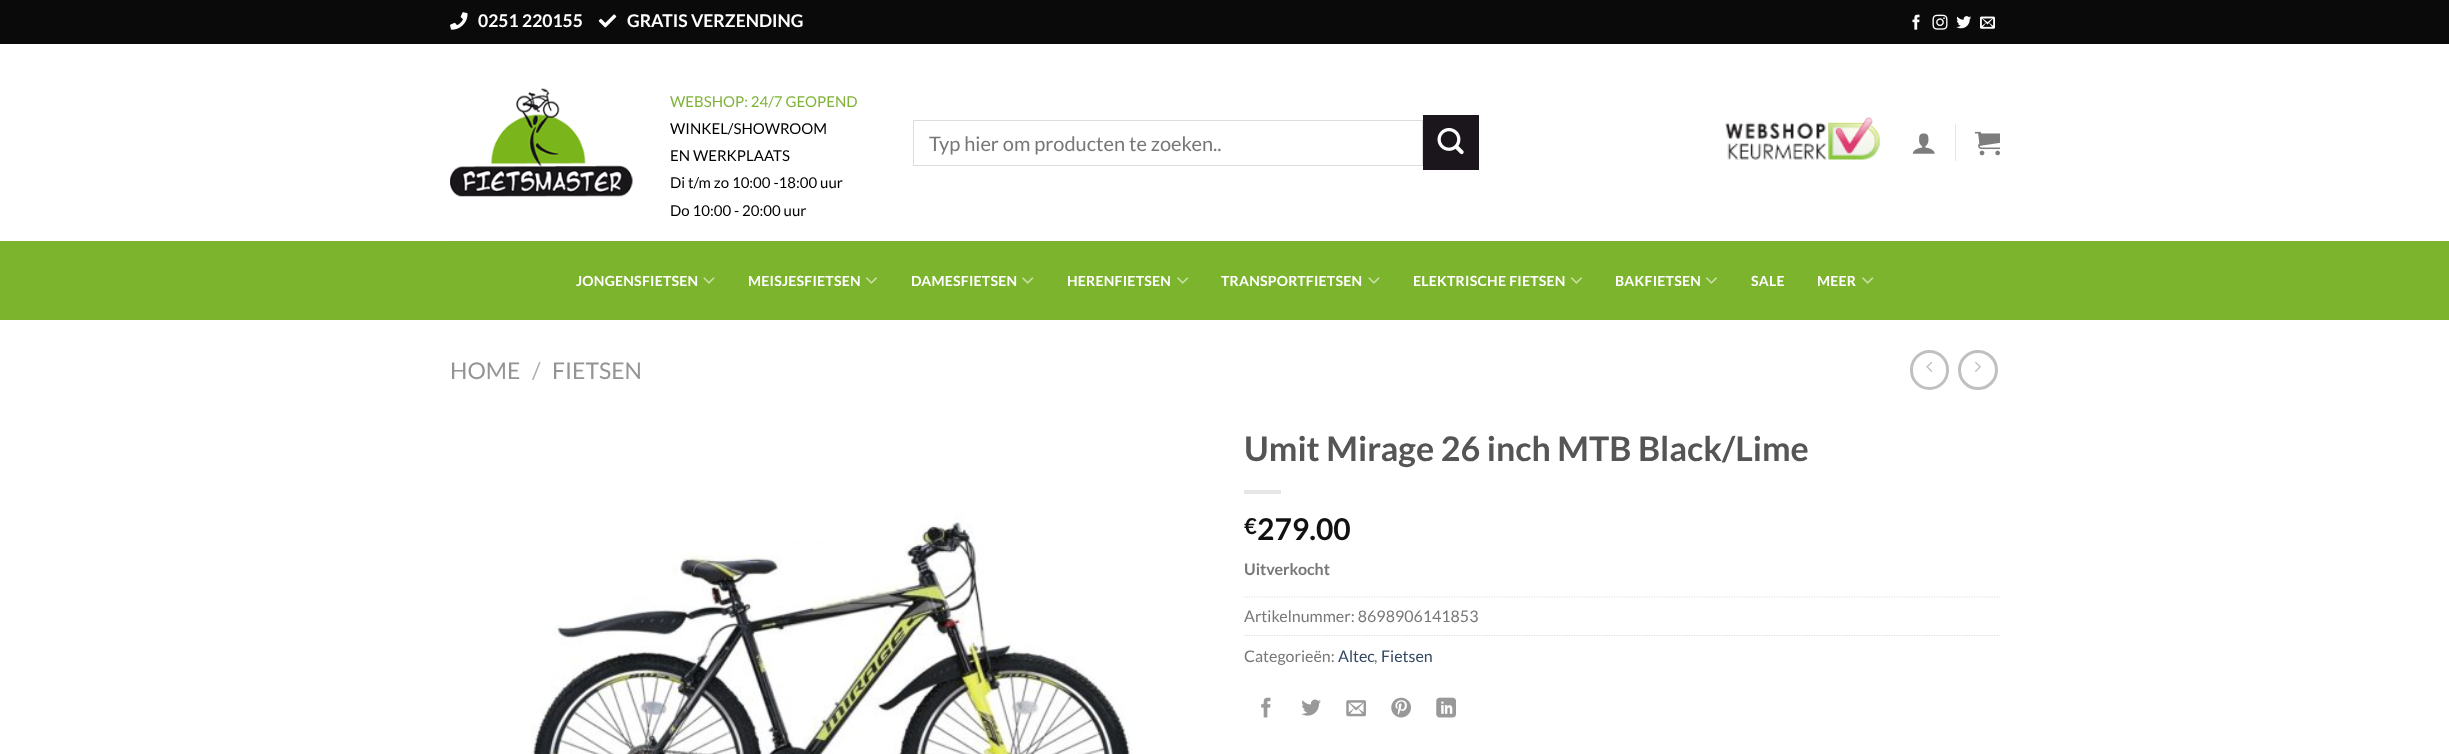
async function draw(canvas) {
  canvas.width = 2449
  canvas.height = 754
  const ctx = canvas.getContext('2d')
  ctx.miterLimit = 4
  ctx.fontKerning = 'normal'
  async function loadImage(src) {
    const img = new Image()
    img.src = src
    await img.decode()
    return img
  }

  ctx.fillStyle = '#fff'
  ctx.fillRect(0, 0, 2449, 754)
  ctx.fillStyle = '#0a0a0a'
  ctx.fillRect(0, 0, 2449, 44)
  ctx.drawImage(await loadImage('image0.png'), 450, 12, 18, 18)
  ctx.font = 'bold 17.5px Lato'
  ctx.fillStyle = '#fff'
  ctx.fillText('0251 220155', 478, 27)
  ctx.drawImage(await loadImage('image1.png'), 598, 14, 19, 14)
  ctx.fillText('GRATIS VERZENDING', 627, 27)
  ctx.drawImage(await loadImage('image2.png'), 1912, 14, 8, 16)
  ctx.drawImage(await loadImage('image3.png'), 1932, 14, 16, 16)
  ctx.drawImage(await loadImage('image4.png'), 1956, 16, 16, 13)
  ctx.drawImage(await loadImage('image5.png'), 1980, 16, 15, 13)
  ctx.drawImage(await loadImage('image6.png'), 450, 88, 183, 109)
  ctx.font = '15px Lato'
  ctx.fillStyle = '#7fb338'
  ctx.fillText('WEBSHOP: 24/7 GEOPEND', 670, 107)
  ctx.fillStyle = '#000'
  ctx.fillText('WINKEL/SHOWROOM', 670, 134)
  ctx.fillText('EN WERKPLAATS', 670, 161)
  ctx.fillText('Di t/m zo 10:00 -18:00 uur', 670, 188)
  ctx.fillText('Do 10:00 - 20:00 uur', 670, 216)
  ctx.strokeStyle = '#ddd'
  ctx.strokeRect(913.5, 120.5, 509, 45)
  ctx.font = '20px Lato'
  ctx.fillStyle = '#777'
  ctx.fillText('Typ hier om producten te zoeken..', 929, 151)
  ctx.fillStyle = '#1a161b'
  ctx.fillRect(1423, 115, 56, 55)
  ctx.drawImage(await loadImage('image7.png'), 1437, 128, 27, 27)
  ctx.drawImage(await loadImage('image8.png'), 1725, 117, 155, 43)
  ctx.drawImage(await loadImage('image9.png'), 1912, 133, 23, 21)
  ctx.fillStyle = '#e6e6e6'
  ctx.fillRect(1955, 124, 1, 37)
  ctx.drawImage(await loadImage('image10.png'), 1975, 131, 25, 25)
  ctx.fillStyle = '#7db42d'
  ctx.fillRect(0, 241, 2449, 79)
  ctx.fillStyle = '#7cae34'
  ctx.fillRect(450, 241, 1550, 1)
  ctx.letterSpacing = '0.25px'
  ctx.font = 'bold 14px Lato'
  ctx.fillStyle = '#fff'
  ctx.fillText('JONGENSFIETSEN', 576, 286)
  ctx.drawImage(await loadImage('image11.png'), 703, 277, 12, 7)
  ctx.fillText('MEISJESFIETSEN', 748, 286)
  ctx.drawImage(await loadImage('image12.png'), 865, 277, 12, 7)
  ctx.fillText('DAMESFIETSEN', 911, 286)
  ctx.drawImage(await loadImage('image13.png'), 1022, 277, 12, 7)
  ctx.fillText('HERENFIETSEN', 1067, 286)
  ctx.drawImage(await loadImage('image13.png'), 1177, 277, 12, 7)
  ctx.fillText('TRANSPORTFIETSEN', 1221, 286)
  ctx.drawImage(await loadImage('image11.png'), 1368, 277, 12, 7)
  ctx.fillText('ELEKTRISCHE FIETSEN', 1413, 286)
  ctx.drawImage(await loadImage('image12.png'), 1570, 277, 12, 7)
  ctx.fillText('BAKFIETSEN', 1615, 286)
  ctx.drawImage(await loadImage('image12.png'), 1705, 277, 12, 7)
  ctx.fillText('SALE', 1751, 286)
  ctx.fillText('MEER', 1817, 286)
  ctx.drawImage(await loadImage('image13.png'), 1862, 277, 12, 7)
  ctx.letterSpacing = '0px'
  ctx.font = '23px Lato'
  ctx.fillStyle = '#949494'
  ctx.fillText('HOME', 450, 379)
  ctx.fillStyle = '#b2b2b2'
  ctx.fillText('/', 532, 379)
  ctx.fillStyle = '#949494'
  ctx.fillText('FIETSEN', 552, 379)
  ctx.beginPath()
  ctx.roundRect(1911.5, 351.5, 36, 37, 18)
  ctx.strokeStyle = '#c0c0c0'
  ctx.lineWidth = 3
  ctx.stroke()
  ctx.drawImage(await loadImage('image14.png'), 1926, 361, 7, 11)
  ctx.beginPath()
  ctx.arc(1978, 370, 18.5, 0, 2 * Math.PI)
  ctx.stroke()
  ctx.drawImage(await loadImage('image15.png'), 1975, 361, 6, 11)
  ctx.drawImage(await loadImage('image16.png'), 531, 515, 602, 239)
  ctx.font = 'bold 34px Lato'
  ctx.fillStyle = '#555'
  ctx.fillText('Umit Mirage 26 inch MTB Black/Lime', 1244, 461)
  ctx.fillStyle = '#e6e6e6'
  ctx.fillRect(1244, 490, 37, 4)
  ctx.font = 'bold 22px Lato'
  ctx.fillStyle = '#111'
  ctx.fillText('€', 1244, 534)
  ctx.font = 'bold 30px Lato'
  ctx.fillText('279.00', 1257, 540)
  ctx.font = 'bold 16px Lato'
  ctx.fillStyle = '#777'
  ctx.fillText('Uitverkocht', 1244, 575)
  ctx.beginPath()
  ctx.moveTo(1244, 597)
  ctx.lineTo(2000, 597)
  ctx.strokeStyle = '#ddd'
  ctx.lineWidth = 1.2
  ctx.setLineDash([1.25, 1.25])
  ctx.stroke()
  ctx.font = '16px Lato'
  ctx.fillText('Artikelnummer: 8698906141853', 1244, 622)
  ctx.beginPath()
  ctx.moveTo(1244, 635.5)
  ctx.lineTo(2000, 635.5)
  ctx.stroke()
  ctx.fillText('Categorieën:', 1244, 662)
  ctx.fillStyle = '#334862'
  ctx.fillText('Altec', 1338, 662)
  ctx.fillStyle = '#777'
  ctx.fillText(',', 1374, 662)
  ctx.fillStyle = '#334862'
  ctx.fillText('Fietsen', 1381, 662)
  ctx.drawImage(await loadImage('image17.png'), 1261, 697, 10, 21)
  ctx.drawImage(await loadImage('image18.png'), 1301, 699, 20, 17)
  ctx.drawImage(await loadImage('image19.png'), 1346, 700, 20, 17)
  ctx.drawImage(await loadImage('image20.png'), 1391, 697, 20, 21)
  ctx.drawImage(await loadImage('image21.png'), 1436, 697, 20, 21)
}

draw(document.querySelector('canvas'))
